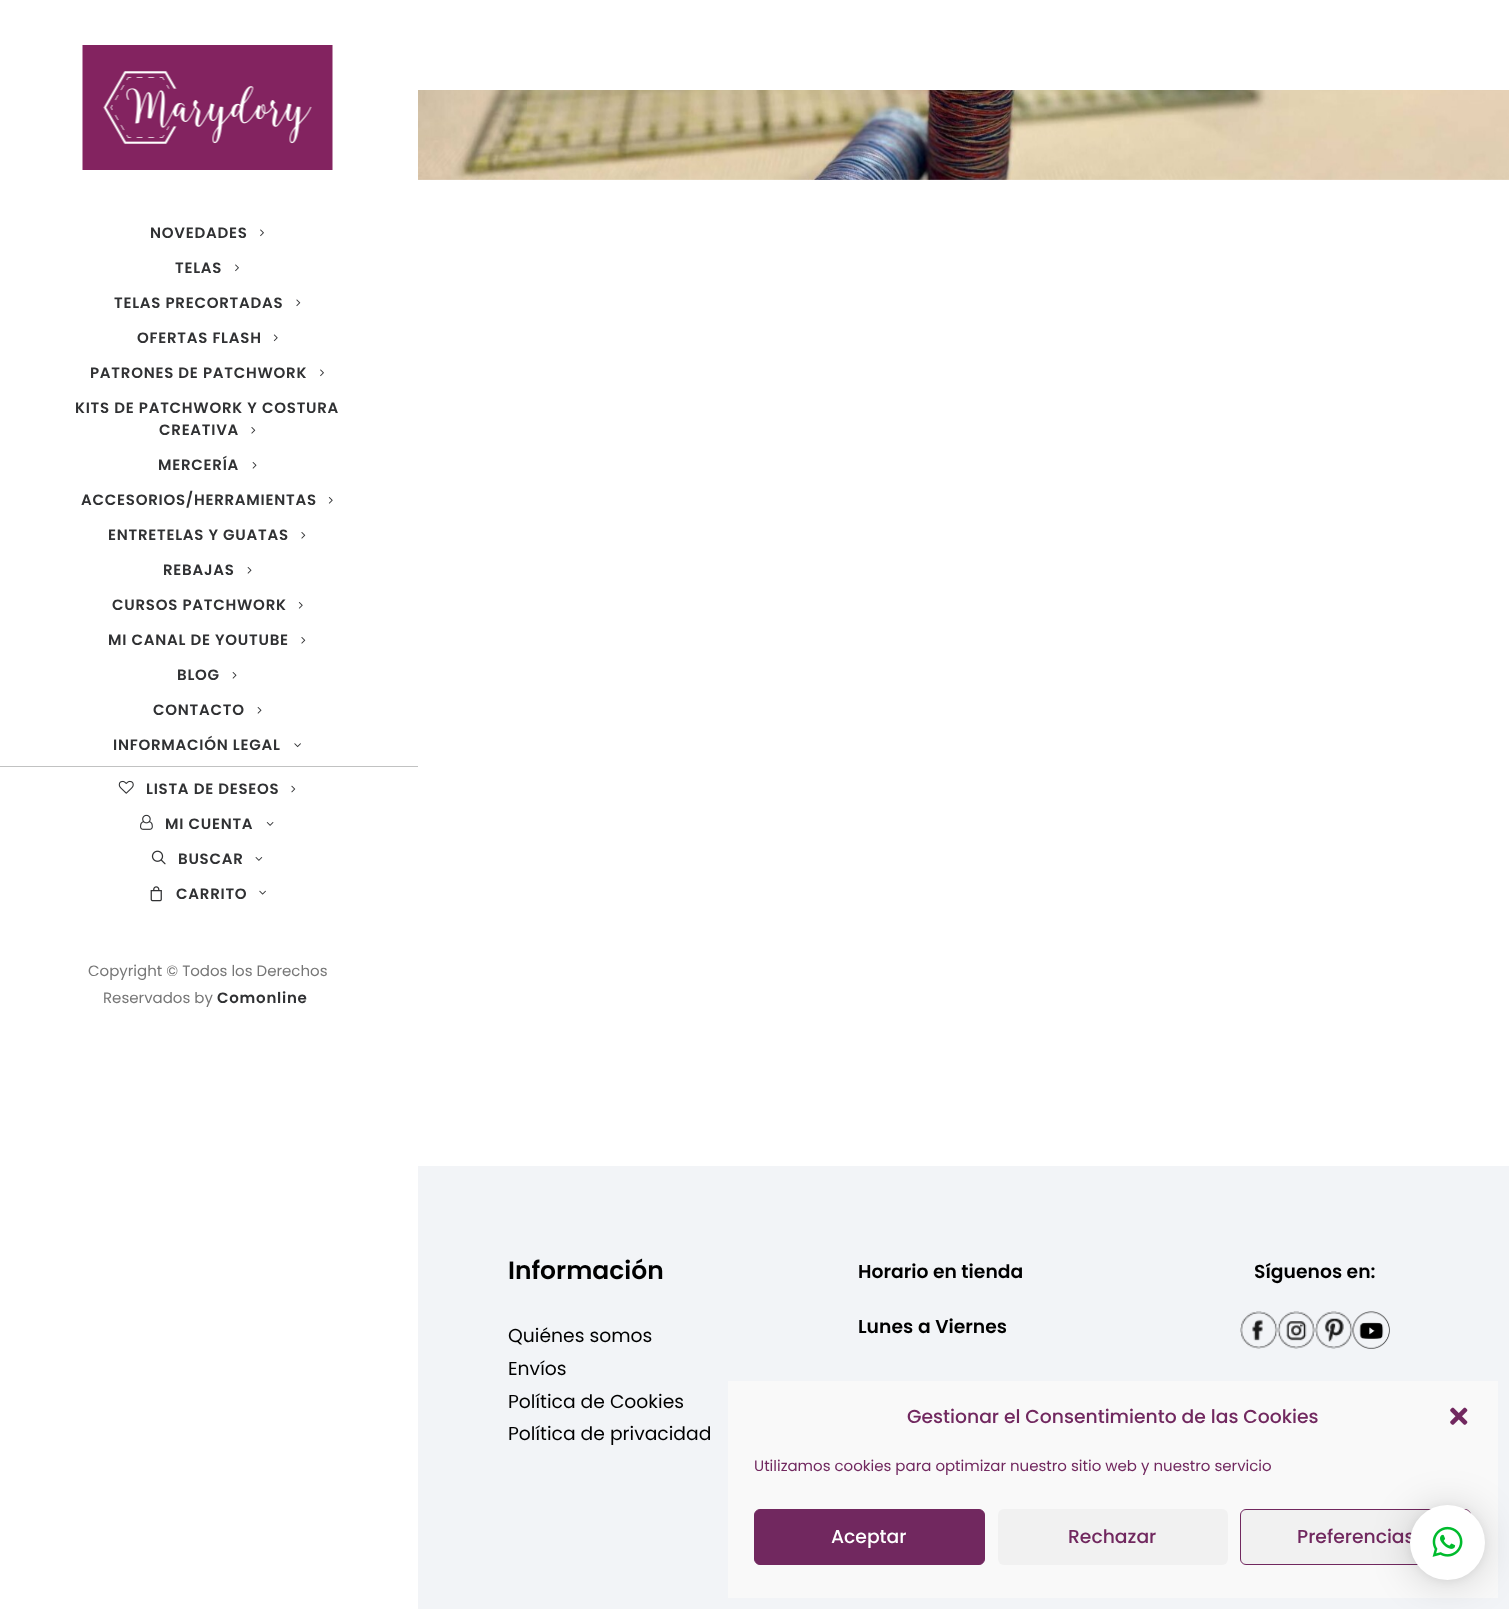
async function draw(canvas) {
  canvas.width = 1509
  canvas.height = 1609
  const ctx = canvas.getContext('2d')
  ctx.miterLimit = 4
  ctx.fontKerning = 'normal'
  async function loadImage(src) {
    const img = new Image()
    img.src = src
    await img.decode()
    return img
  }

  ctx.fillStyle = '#fff'
  ctx.fillRect(0, 0, 1509, 1609)
  ctx.drawImage(await loadImage('image0.png'), 82, 45, 251, 125)
  ctx.letterSpacing = '0.75px'
  ctx.font = '600 15px Poppins'
  ctx.fillStyle = '#303133'
  ctx.fillText('NOVEDADES', 150, 238)
  ctx.drawImage(await loadImage('image1.png'), 260, 229, 4, 8)
  ctx.fillText('TELAS', 175, 273)
  ctx.drawImage(await loadImage('image1.png'), 235, 264, 4, 8)
  ctx.fillText('TELAS PRECORTADAS', 114, 308)
  ctx.drawImage(await loadImage('image2.png'), 296, 299, 5, 8)
  ctx.fillText('OFERTAS FLASH', 137, 343)
  ctx.drawImage(await loadImage('image3.png'), 273, 334, 5, 8)
  ctx.fillText('PATRONES DE PATCHWORK', 90, 378)
  ctx.drawImage(await loadImage('image1.png'), 320, 369, 4, 8)
  ctx.fillText('KITS DE PATCHWORK Y COSTURA', 75, 413)
  ctx.fillText('CREATIVA', 159, 435)
  ctx.drawImage(await loadImage('image4.png'), 251, 427, 5, 7)
  ctx.fillText('MERCERÍA', 158, 470)
  ctx.drawImage(await loadImage('image5.png'), 252, 462, 5, 7)
  ctx.fillText('ACCESORIOS/HERRAMIENTAS', 81, 505)
  ctx.drawImage(await loadImage('image6.png'), 328, 497, 5, 7)
  ctx.fillText('ENTRETELAS Y GUATAS', 108, 540)
  ctx.drawImage(await loadImage('image4.png'), 301, 532, 5, 7)
  ctx.fillText('REBAJAS', 163, 575)
  ctx.drawImage(await loadImage('image5.png'), 247, 567, 5, 7)
  ctx.fillText('CURSOS PATCHWORK', 112, 610)
  ctx.drawImage(await loadImage('image6.png'), 298, 602, 5, 7)
  ctx.fillText('MI CANAL DE YOUTUBE', 108, 645)
  ctx.drawImage(await loadImage('image4.png'), 301, 637, 5, 7)
  ctx.fillText('BLOG', 177, 680)
  ctx.drawImage(await loadImage('image5.png'), 232, 672, 5, 7)
  ctx.fillText('CONTACTO', 153, 715)
  ctx.drawImage(await loadImage('image5.png'), 257, 707, 5, 7)
  ctx.fillText('INFORMACIÓN LEGAL', 113, 750)
  ctx.drawImage(await loadImage('image7.png'), 294, 743, 7, 5)
  ctx.fillStyle = '#c1c2c2'
  ctx.fillRect(0, 766, 418, 1)
  ctx.drawImage(await loadImage('image8.png'), 118, 780, 16, 14)
  ctx.fillStyle = '#303133'
  ctx.fillText('LISTA DE DESEOS', 146, 794)
  ctx.drawImage(await loadImage('image9.png'), 291, 785, 5, 8)
  ctx.drawImage(await loadImage('image10.png'), 140, 814, 13, 16)
  ctx.fillText('MI CUENTA', 165, 829)
  ctx.drawImage(await loadImage('image11.png'), 266, 822, 8, 4)
  ctx.drawImage(await loadImage('image12.png'), 151, 850, 15, 15)
  ctx.fillText('BUSCAR', 178, 864)
  ctx.drawImage(await loadImage('image13.png'), 255, 857, 8, 4)
  ctx.drawImage(await loadImage('image14.png'), 150, 886, 12, 16)
  ctx.fillText('CARRITO', 176, 899)
  ctx.drawImage(await loadImage('image15.png'), 259, 890, 7, 5)
  ctx.letterSpacing = '0px'
  ctx.font = '15px Poppins'
  ctx.fillStyle = '#777'
  ctx.fillText('Copyright © Todos los Derechos', 88, 976)
  ctx.fillText('Reservados by', 103, 1003)
  ctx.letterSpacing = '0.75px'
  ctx.font = '600 15px Poppins'
  ctx.fillStyle = '#303133'
  ctx.fillText('Comonline', 217, 1003)
  ctx.drawImage(await loadImage('image16.png'), 418, 90, 1091, 90)
  ctx.fillStyle = '#f2f4f7'
  ctx.fillRect(418, 1166, 1091, 443)
  ctx.letterSpacing = '0px'
  ctx.font = '600 25px Poppins'
  ctx.fillStyle = '#000'
  ctx.fillText('Información', 508, 1279)
  ctx.font = '18.75px Poppins'
  ctx.fillText('Quiénes somos', 508, 1342)
  ctx.fillText('Envíos', 508, 1375)
  ctx.fillText('Política de Cookies', 508, 1408)
  ctx.fillText('Política de privacidad', 508, 1440)
  ctx.font = '600 18.75px Poppins'
  ctx.fillText('Horario en tienda', 858, 1278)
  ctx.fillText('Lunes', 858, 1333)
  ctx.fillText('a Viernes', 918, 1333)
  ctx.fillText('Síguenos en:', 1254, 1278)
  ctx.drawImage(await loadImage('image17.png'), 1240, 1311, 38, 38)
  ctx.drawImage(await loadImage('image18.png'), 1277, 1311, 38, 38)
  ctx.drawImage(await loadImage('image19.png'), 1315, 1311, 38, 38)
  ctx.drawImage(await loadImage('image20.png'), 1352, 1311, 38, 38)
  ctx.fillStyle = '#f9f9f9'
  ctx.fillRect(728, 1381, 770, 217)
  ctx.font = '500 18.75px Poppins'
  ctx.fillStyle = '#71285f'
  ctx.fillText('Gestionar el Consentimiento de las Cookies', 907, 1423)
  ctx.drawImage(await loadImage('image21.png'), 1450, 1407, 18, 18)
  ctx.font = '15px Poppins'
  ctx.fillText('Utilizamos cookies para optimizar nuestro sitio web y nuestro servicio', 754, 1471)
  ctx.beginPath()
  ctx.roundRect(754.5, 1509.5, 230, 55, 5.5)
  ctx.fill()
  ctx.strokeStyle = '#71285f'
  ctx.stroke()
  ctx.font = '500 18.75px Poppins'
  ctx.fillStyle = '#fff'
  ctx.fillText('Aceptar', 831, 1543)
  ctx.fillStyle = '#f1f1f1'
  ctx.beginPath()
  ctx.roundRect(998, 1509, 230, 56, 6)
  ctx.fill()
  ctx.fillStyle = '#71285f'
  ctx.fillText('Rechazar', 1068, 1543)
  ctx.fillStyle = '#f1f1f1'
  ctx.beginPath()
  ctx.roundRect(1240.5, 1509.5, 230, 55, 5.5)
  ctx.fill()
  ctx.stroke()
  ctx.fillStyle = '#71285f'
  ctx.fillText('Preferencias', 1297, 1543)
  ctx.fillStyle = '#00000029'
  ctx.filter = 'blur(20px)'
  ctx.beginPath()
  ctx.roundRect(1410, 1508, 75, 75, 37.5)
  ctx.fill()
  ctx.filter = 'none'
  ctx.fillStyle = '#0000000f'
  ctx.filter = 'blur(4px)'
  ctx.beginPath()
  ctx.roundRect(1410, 1506, 75, 75, 37.5)
  ctx.fill()
  ctx.filter = 'none'
  ctx.fillStyle = '#fff'
  ctx.beginPath()
  ctx.arc(1447.5, 1542.5, 37.5, 0, 2 * Math.PI)
  ctx.fill()
  ctx.drawImage(await loadImage('image22.png'), 1432, 1526, 31, 31)
}

draw(document.querySelector('canvas'))
